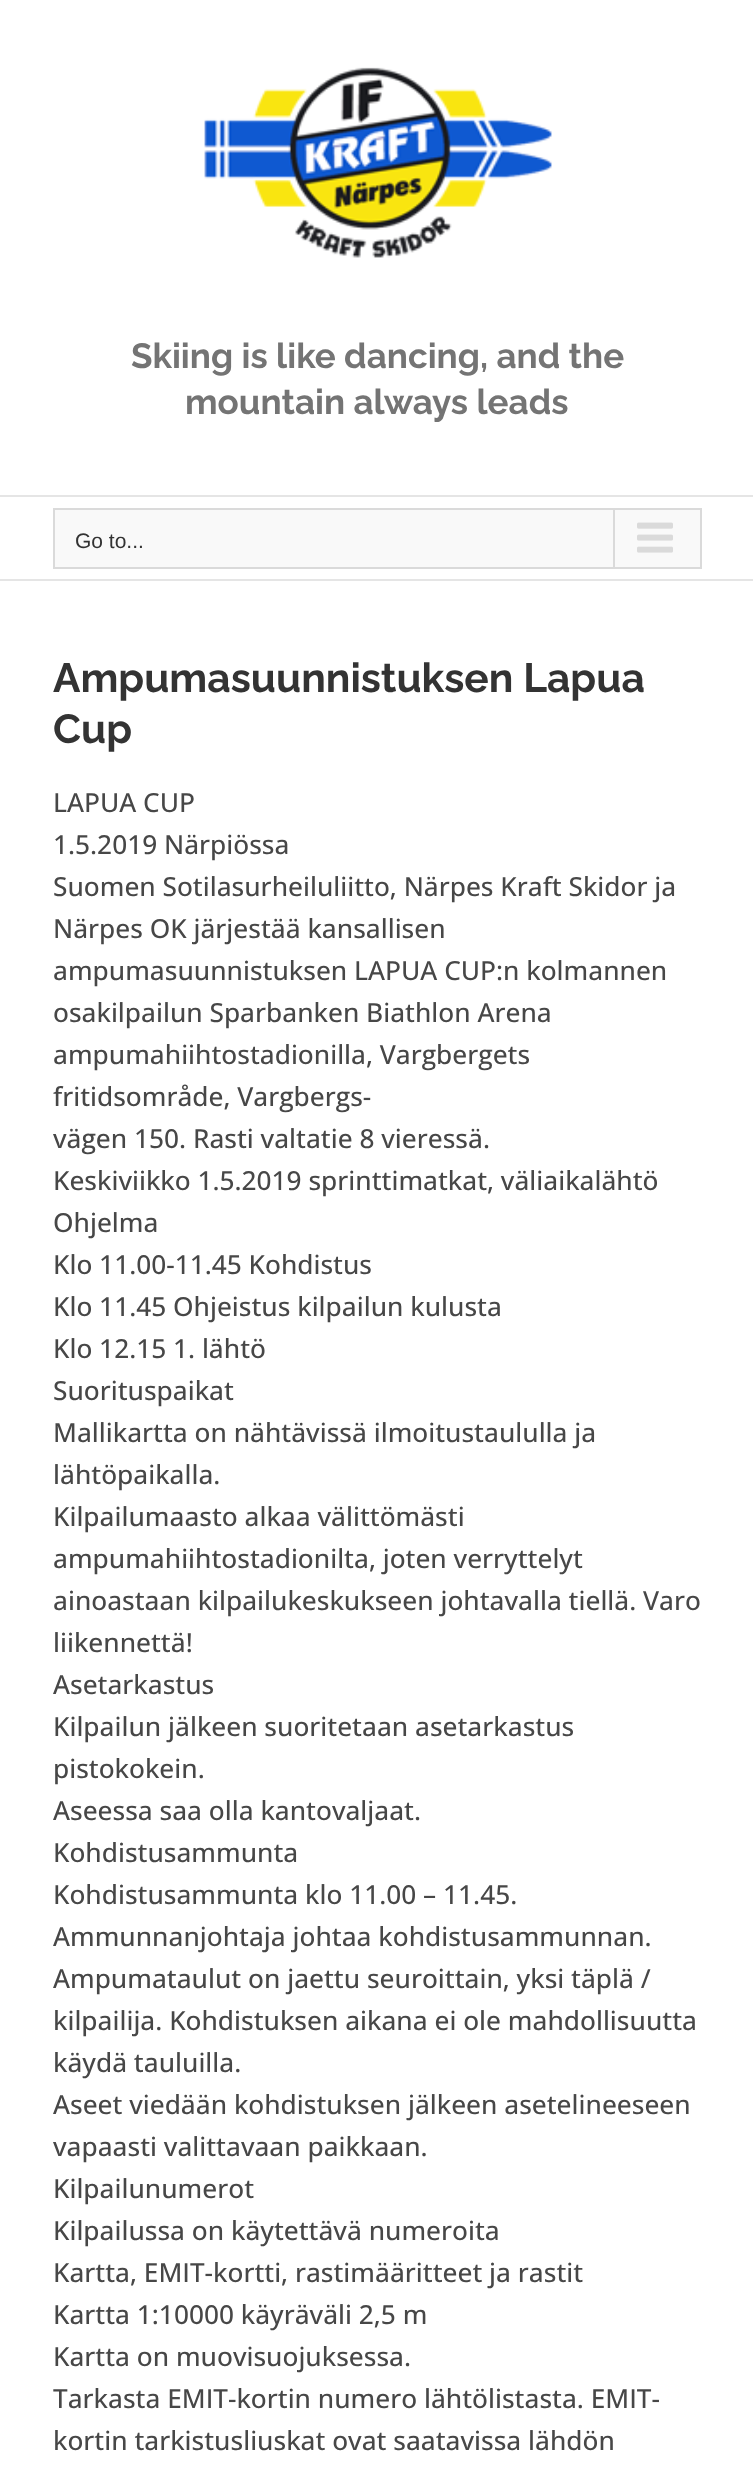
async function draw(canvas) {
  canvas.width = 753
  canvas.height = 2478
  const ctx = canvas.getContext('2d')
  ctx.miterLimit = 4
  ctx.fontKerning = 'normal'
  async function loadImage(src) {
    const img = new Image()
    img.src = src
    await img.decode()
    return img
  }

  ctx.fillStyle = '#fff'
  ctx.fillRect(0, 0, 753, 2478)
  ctx.fillStyle = '#e5e5e5'
  ctx.fillRect(0, 495, 753, 2)
  ctx.drawImage(await loadImage('image0.png'), 204, 67, 348, 191)
  ctx.font = 'bold 35px Raleway'
  ctx.fillStyle = '#747474'
  ctx.fillText('Skiing is like dancing, and the', 131, 368)
  ctx.fillText('mountain always leads', 185, 414)
  ctx.fillStyle = '#e5e5e5'
  ctx.fillRect(0, 579, 753, 2)
  ctx.fillStyle = '#f9f9f9'
  ctx.beginPath()
  ctx.rect(54, 509, 647, 59)
  ctx.fill()
  ctx.strokeStyle = '#dadada'
  ctx.lineWidth = 2
  ctx.stroke()
  ctx.font = '21px Liberation Sans'
  ctx.fillStyle = '#333'
  ctx.fillText('Go to...', 75, 548)
  ctx.fillStyle = '#dadada'
  ctx.fillRect(613, 509, 2, 58)
  ctx.drawImage(await loadImage('image1.png'), 637, 522, 36, 31)
  ctx.font = 'bold 40.75px Raleway'
  ctx.fillStyle = '#333'
  ctx.fillText('Ampumasuunnistuksen Lapua', 53, 692)
  ctx.fillText('Cup', 53, 743)
  ctx.font = '500 26.25px Open Sans'
  ctx.fillStyle = '#474747'
  ctx.fillText('LAPUA CUP', 53, 812)
  ctx.fillText('1.5.2019 Närpiössa', 53, 854)
  ctx.fillText('Suomen Sotilasurheiluliitto, Närpes Kraft Skidor ja', 53, 896)
  ctx.fillText('Närpes OK järjestää kansallisen', 53, 938)
  ctx.fillText('ampumasuunnistuksen LAPUA CUP:n kolmannen', 53, 980)
  ctx.fillText('osakilpailun Sparbanken Biathlon Arena', 53, 1022)
  ctx.fillText('ampumahiihtostadionilla, Vargbergets', 53, 1064)
  ctx.fillText('fritidsområde, Vargbergs-', 53, 1106)
  ctx.fillText('vägen 150. Rasti valtatie 8 vieressä.', 53, 1148)
  ctx.fillText('Keskiviikko 1.5.2019 sprinttimatkat, väliaikalähtö', 53, 1190)
  ctx.fillText('Ohjelma', 53, 1232)
  ctx.fillText('Klo 11.00-11.45 Kohdistus', 53, 1274)
  ctx.fillText('Klo 11.45 Ohjeistus kilpailun kulusta', 53, 1316)
  ctx.fillText('Klo 12.15 1. lähtö', 53, 1358)
  ctx.fillText('Suorituspaikat', 53, 1400)
  ctx.fillText('Mallikartta on nähtävissä ilmoitustaululla ja', 53, 1442)
  ctx.fillText('lähtöpaikalla.', 53, 1484)
  ctx.fillText('Kilpailumaasto alkaa välittömästi', 53, 1526)
  ctx.fillText('ampumahiihtostadionilta, joten verryttelyt', 53, 1568)
  ctx.fillText('ainoastaan kilpailukeskukseen johtavalla tiellä. Varo', 53, 1610)
  ctx.fillText('liikennettä!', 53, 1652)
  ctx.fillText('Asetarkastus', 53, 1694)
  ctx.fillText('Kilpailun jälkeen suoritetaan asetarkastus', 53, 1736)
  ctx.fillText('pistokokein.', 53, 1778)
  ctx.fillText('Aseessa saa olla kantovaljaat.', 53, 1820)
  ctx.fillText('Kohdistusammunta', 53, 1862)
  ctx.fillText('Kohdistusammunta klo 11.00 – 11.45.', 53, 1904)
  ctx.fillText('Ammunnanjohtaja johtaa kohdistusammunnan.', 53, 1946)
  ctx.fillText('Ampumataulut on jaettu seuroittain, yksi täplä /', 53, 1988)
  ctx.fillText('kilpailija. Kohdistuksen aikana ei ole mahdollisuutta', 53, 2030)
  ctx.fillText('käydä tauluilla.', 53, 2072)
  ctx.fillText('Aseet viedään kohdistuksen jälkeen asetelineeseen', 53, 2114)
  ctx.fillText('vapaasti valittavaan paikkaan.', 53, 2156)
  ctx.fillText('Kilpailunumerot', 53, 2198)
  ctx.fillText('Kilpailussa on käytettävä numeroita', 53, 2240)
  ctx.fillText('Kartta, EMIT-kortti, rastimääritteet ja rastit', 53, 2282)
  ctx.fillText('Kartta 1:10000 käyräväli 2,5 m', 53, 2324)
  ctx.fillText('Kartta on muovisuojuksessa.', 53, 2366)
  ctx.fillText('Tarkasta EMIT-kortin numero lähtölistasta. EMIT-', 53, 2408)
  ctx.fillText('kortin tarkistusliuskat ovat saatavissa lähdön', 53, 2450)
}

draw(document.querySelector('canvas'))
